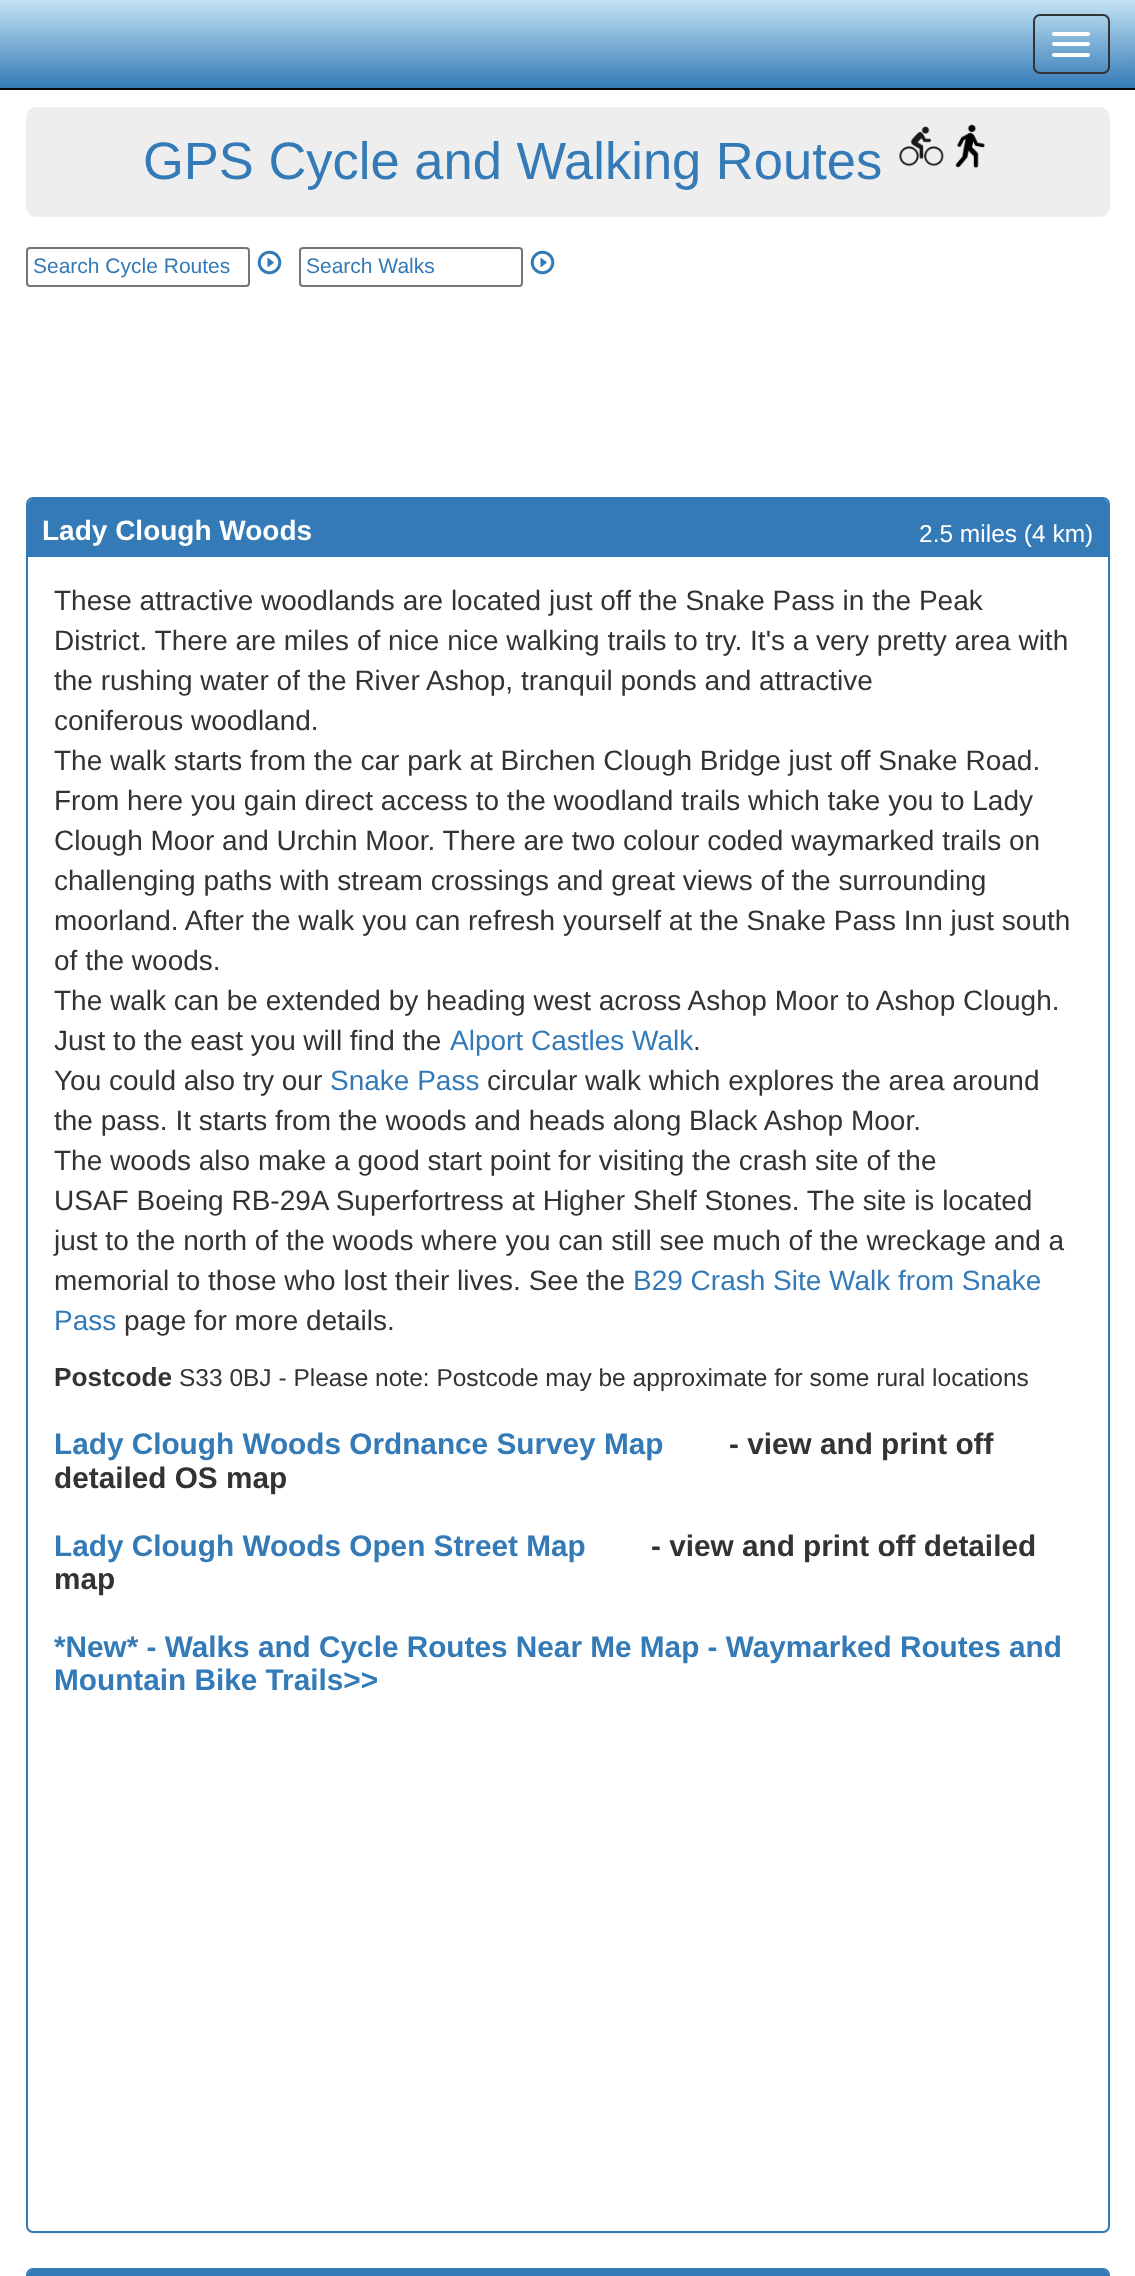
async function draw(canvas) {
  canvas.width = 1135
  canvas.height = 2276
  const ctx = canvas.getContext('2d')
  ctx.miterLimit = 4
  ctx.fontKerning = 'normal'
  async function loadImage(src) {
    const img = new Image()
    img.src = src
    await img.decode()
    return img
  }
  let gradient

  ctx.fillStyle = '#fff'
  ctx.fillRect(0, 0, 1135, 2276)
  gradient = ctx.createLinearGradient(568, 0, 568, 88)
  gradient.addColorStop(0, '#c4e3f3')
  gradient.addColorStop(1, '#337ab7')
  ctx.fillStyle = gradient
  ctx.fillRect(0, 0, 1135, 88)
  ctx.fillStyle = '#080808'
  ctx.fillRect(0, 88, 1135, 2)
  ctx.beginPath()
  ctx.roundRect(1034, 15, 75, 58, 6)
  ctx.strokeStyle = '#333'
  ctx.lineWidth = 2
  ctx.stroke()
  ctx.fillStyle = '#fff'
  ctx.beginPath()
  ctx.roundRect(1052, 32, 38, 4, 2)
  ctx.fill()
  ctx.beginPath()
  ctx.roundRect(1052, 42, 38, 4, 2)
  ctx.fill()
  ctx.beginPath()
  ctx.roundRect(1052, 53, 38, 4, 2)
  ctx.fill()
  ctx.fillStyle = '#eee'
  ctx.beginPath()
  ctx.roundRect(26, 107, 1084, 110, 11)
  ctx.fill()
  ctx.font = '52.5px Liberation Sans'
  ctx.fillStyle = '#337ab7'
  ctx.fillText('GPS Cycle and Walking Routes', 143, 179)
  ctx.drawImage(await loadImage('image0.png'), 899, 126, 45, 41)
  ctx.drawImage(await loadImage('image1.png'), 955, 124, 30, 44)
  ctx.beginPath()
  ctx.roundRect(27, 248, 222, 38, 3)
  ctx.strokeStyle = '#767676'
  ctx.stroke()
  ctx.font = '21px Liberation Sans'
  ctx.fillText('Search Cycle Routes', 33, 273)
  ctx.drawImage(await loadImage('image2.png'), 257, 250, 25, 25)
  ctx.beginPath()
  ctx.roundRect(300, 248, 222, 38, 3)
  ctx.stroke()
  ctx.fillText('Search Walks', 306, 273)
  ctx.drawImage(await loadImage('image2.png'), 530, 250, 25, 25)
  ctx.fillStyle = '#0000000d'
  ctx.filter = 'blur(1px)'
  ctx.beginPath()
  ctx.roundRect(26, 499, 1084, 1736, 7)
  ctx.fill()
  ctx.filter = 'none'
  ctx.fillStyle = '#fff'
  ctx.beginPath()
  ctx.roundRect(27, 498, 1082, 1734, 6)
  ctx.fill()
  ctx.strokeStyle = '#337ab7'
  ctx.stroke()
  ctx.fillStyle = '#337ab7'
  ctx.beginPath()
  ctx.roundRect(28, 499, 1080, 58, [5, 5, 0, 0])
  ctx.fill()
  ctx.font = 'bold 28px Liberation Sans'
  ctx.fillStyle = '#fff'
  ctx.fillText('Lady Clough Woods', 42, 540)
  ctx.font = '24.5px Liberation Sans'
  ctx.fillText('2.5 miles (4 km)', 919, 542)
  ctx.font = '28px Liberation Sans'
  ctx.fillStyle = '#333'
  ctx.fillText('These attractive woodlands are located just off the Snake Pass in the Peak', 54, 610)
  ctx.fillText('District. There are miles of nice nice walking trails to try. It\'s a very pretty area with', 54, 650)
  ctx.fillText('the rushing water of the River Ashop, tranquil ponds and attractive', 54, 690)
  ctx.fillText('coniferous woodland.', 54, 730)
  ctx.fillText('The walk starts from the car park at Birchen Clough Bridge just off Snake Road.', 54, 770)
  ctx.fillText('From here you gain direct access to the woodland trails which take you to Lady', 54, 810)
  ctx.fillText('Clough Moor and Urchin Moor. There are two colour coded waymarked trails on', 54, 850)
  ctx.fillText('challenging paths with stream crossings and great views of the surrounding', 54, 890)
  ctx.fillText('moorland. After the walk you can refresh yourself at the Snake Pass Inn just south', 54, 930)
  ctx.fillText('of the woods.', 54, 970)
  ctx.fillText('The walk can be extended by heading west across Ashop Moor to Ashop Clough.', 54, 1010)
  ctx.wordSpacing = '-0.25px'
  ctx.fillText('Just to the east you will find the', 54, 1050)
  ctx.wordSpacing = '0px'
  ctx.fillStyle = '#337ab7'
  ctx.fillText('Alport Castles Walk', 450, 1050)
  ctx.fillStyle = '#333'
  ctx.fillText('.', 693, 1050)
  ctx.fillText('You could also try our', 54, 1090)
  ctx.fillStyle = '#337ab7'
  ctx.fillText('Snake Pass', 330, 1090)
  ctx.fillStyle = '#333'
  ctx.fillText('circular walk which explores the area around', 487, 1090)
  ctx.fillText('the pass. It starts from the woods and heads along Black Ashop Moor.', 54, 1130)
  ctx.fillText('The woods also make a good start point for visiting the crash site of the', 54, 1170)
  ctx.fillText('USAF Boeing RB-29A Superfortress at Higher Shelf Stones. The site is located', 54, 1210)
  ctx.fillText('just to the north of the woods where you can still see much of the wreckage and a', 54, 1250)
  ctx.fillText('memorial to those who lost their lives. See the', 54, 1290)
  ctx.fillStyle = '#337ab7'
  ctx.fillText('B29 Crash Site Walk from Snake', 633, 1290)
  ctx.fillText('Pass', 54, 1330)
  ctx.fillStyle = '#333'
  ctx.fillText('page for more details.', 124, 1330)
  ctx.font = 'bold 26.25px Liberation Sans'
  ctx.fillText('Postcode', 54, 1386)
  ctx.font = '24.5px Liberation Sans'
  ctx.fillText('S33 0BJ - Please note: Postcode may be approximate for some rural locations', 179, 1386)
  ctx.font = 'bold 29.75px Liberation Sans'
  ctx.fillStyle = '#337ab7'
  ctx.fillText('Lady Clough Woods Ordnance Survey Map', 54, 1454)
  ctx.fillStyle = '#333'
  ctx.fillText('- view and print off', 729, 1454)
  ctx.fillText('detailed OS map', 54, 1488)
  ctx.fillStyle = '#337ab7'
  ctx.fillText('Lady Clough Woods Open Street Map', 54, 1556)
  ctx.fillStyle = '#333'
  ctx.fillText('- view and print off detailed', 651, 1556)
  ctx.fillText('map', 54, 1589)
  ctx.fillStyle = '#337ab7'
  ctx.fillText('*New* - Walks and Cycle Routes Near Me Map - Waymarked Routes and', 54, 1657)
  ctx.fillText('Mountain Bike Trails>>', 54, 1690)
  ctx.beginPath()
  ctx.roundRect(27, 2269, 1082, 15, 6)
  ctx.stroke()
  ctx.beginPath()
  ctx.moveTo(33, 2270)
  ctx.lineTo(1103, 2270)
  ctx.bezierCurveTo(1106, 2270, 1108, 2272, 1108, 2275)
  ctx.lineTo(1108, 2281)
  ctx.lineTo(28, 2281)
  ctx.lineTo(28, 2275)
  ctx.bezierCurveTo(28, 2272, 30, 2270, 33, 2270)
  ctx.closePath()
  ctx.fill()
}

draw(document.querySelector('canvas'))
